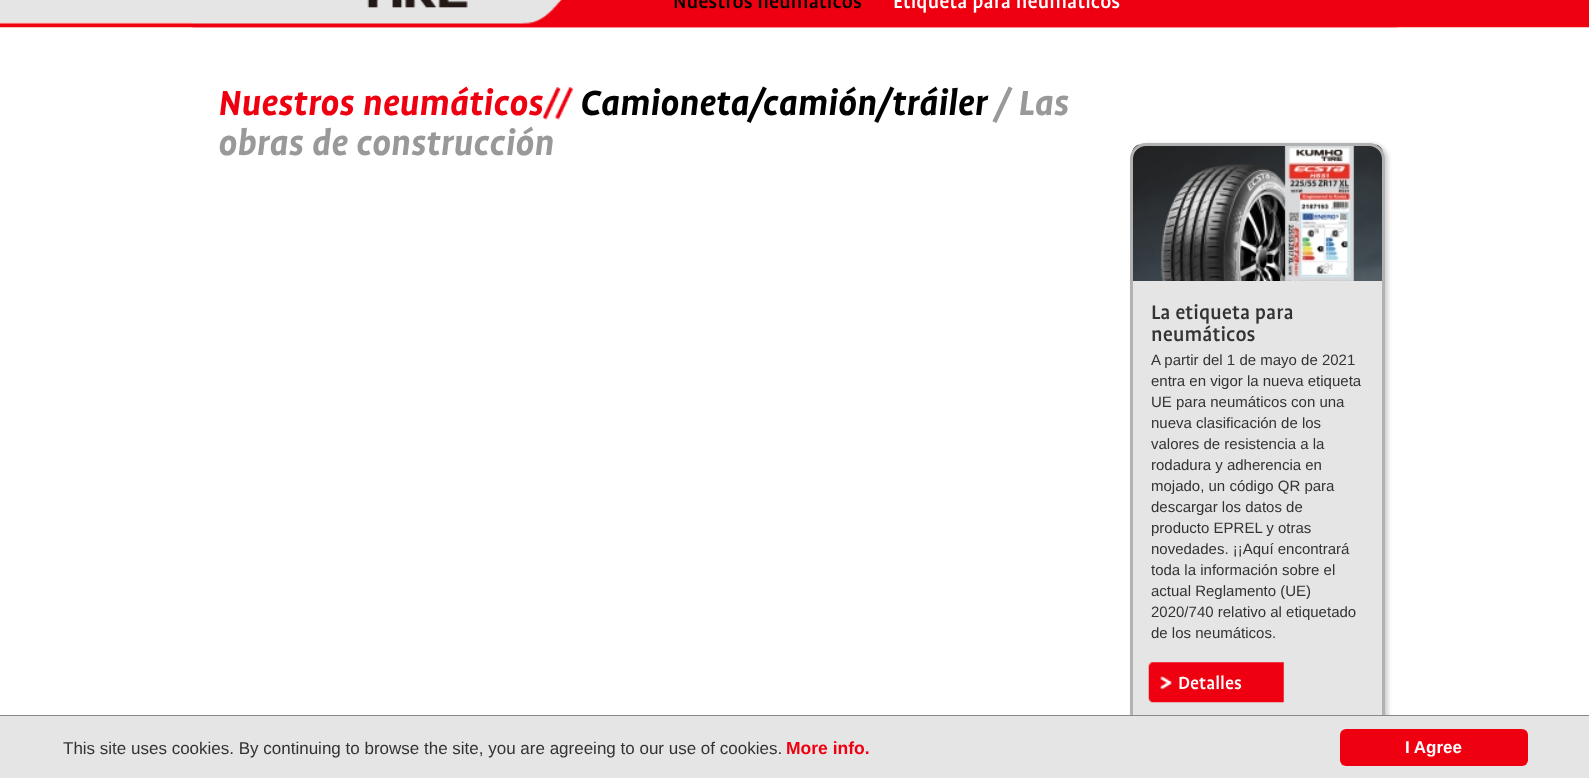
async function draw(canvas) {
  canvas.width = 1589
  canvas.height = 778
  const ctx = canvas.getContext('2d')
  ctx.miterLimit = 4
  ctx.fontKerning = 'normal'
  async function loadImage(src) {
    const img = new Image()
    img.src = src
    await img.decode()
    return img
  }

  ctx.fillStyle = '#fff'
  ctx.fillRect(0, 0, 1589, 778)
  ctx.drawImage(await loadImage('image0.png'), 0, 0, 1589, 28)
  ctx.drawImage(await loadImage('image1.png'), 192, 0, 1206, 28)
  ctx.font = '500 22.5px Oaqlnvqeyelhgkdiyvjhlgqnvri'
  ctx.fillStyle = '#000'
  ctx.fillText('Nuestros neumáticos', 673, 8)
  ctx.fillStyle = '#fff'
  ctx.fillText('Etiqueta para neumáticos', 893, 8)
  ctx.font = 'bold 40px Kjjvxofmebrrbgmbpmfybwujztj'
  ctx.fillStyle = '#ef0010'
  ctx.fillText('Nuestros neumáticos', 218, 115)
  ctx.drawImage(await loadImage('image2.png'), 543, 87, 31, 33)
  ctx.fillStyle = '#000'
  ctx.fillText('Camioneta/camión/tráiler', 580, 115)
  ctx.fillStyle = '#999'
  ctx.fillText('/ Las', 995, 115)
  ctx.fillText('obras de construcción', 218, 155)
  ctx.fillStyle = '#cecece'
  ctx.filter = 'blur(2px)'
  ctx.beginPath()
  ctx.roundRect(1133, 144, 255, 591, 16)
  ctx.fill()
  ctx.filter = 'none'
  ctx.fillStyle = '#e5e5e5'
  ctx.beginPath()
  ctx.roundRect(1130, 143, 255, 591, 16)
  ctx.fill()
  ctx.drawImage(await loadImage('image3.png'), 1132, 144, 251, 137)
  ctx.beginPath()
  ctx.roundRect(1131.5, 144.5, 252, 588, 14.5)
  ctx.strokeStyle = '#b2b2b2'
  ctx.lineWidth = 3
  ctx.stroke()
  ctx.font = '500 22.5px Oaqlnvqeyelhgkdiyvjhlgqnvri'
  ctx.fillStyle = '#333'
  ctx.fillText('La etiqueta para', 1151, 319)
  ctx.fillText('neumáticos', 1151, 341)
  ctx.font = '15px Liberation Sans'
  ctx.fillText('A partir del 1 de mayo de 2021', 1151, 365)
  ctx.fillText('entra en vigor la nueva etiqueta', 1151, 386)
  ctx.fillText('UE para neumáticos con una', 1151, 407)
  ctx.fillText('nueva clasificación de los', 1151, 428)
  ctx.fillText('valores de resistencia a la', 1151, 449)
  ctx.fillText('rodadura y adherencia en', 1151, 470)
  ctx.fillText('mojado, un código QR para', 1151, 491)
  ctx.fillText('descargar los datos de', 1151, 512)
  ctx.fillText('producto EPREL y otras', 1151, 533)
  ctx.fillText('novedades. ¡¡Aquí encontrará', 1151, 554)
  ctx.fillText('toda la información sobre el', 1151, 575)
  ctx.fillText('actual Reglamento (UE)', 1151, 596)
  ctx.fillText('2020/740 relativo al etiquetado', 1151, 617)
  ctx.fillText('de los neumáticos.', 1151, 638)
  ctx.drawImage(await loadImage('image4.png'), 1148, 662, 136, 41)
  ctx.font = '500 20px Oaqlnvqeyelhgkdiyvjhlgqnvri'
  ctx.fillStyle = '#fff'
  ctx.fillText('Detalles', 1178, 689)
  ctx.fillStyle = '#e5e5e5'
  ctx.fillRect(0, 716, 1589, 62)
  ctx.fillStyle = '#888'
  ctx.fillRect(0, 715, 1589, 1)
  ctx.font = '17px Liberation Sans'
  ctx.fillStyle = '#333'
  ctx.fillText('This site uses cookies. By continuing to browse the site, you are agreeing to our use of cookies.', 63, 754)
  ctx.font = 'bold 17.5px Liberation Sans'
  ctx.fillStyle = '#ef0010'
  ctx.fillText('More info.', 786, 754)
  ctx.beginPath()
  ctx.roundRect(1340, 729, 188, 37, 6)
  ctx.fill()
  ctx.font = 'bold 17px Liberation Sans'
  ctx.fillStyle = '#fff'
  ctx.fillText('I Agree', 1405, 753)
}

draw(document.querySelector('canvas'))
